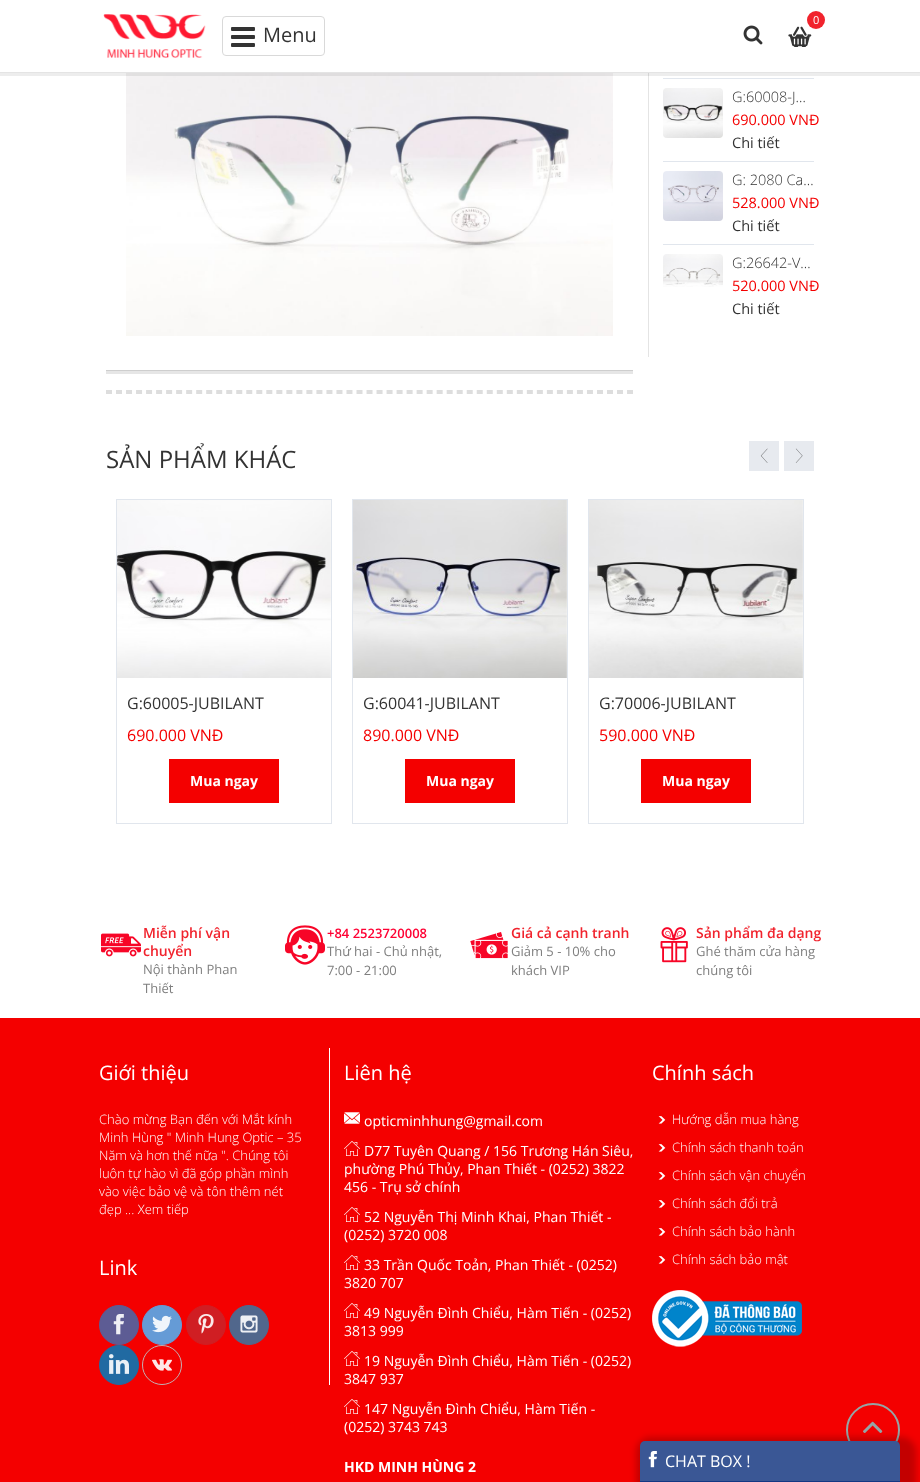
async function draw(canvas) {
  canvas.width = 920
  canvas.height = 1482
  const ctx = canvas.getContext('2d')
  ctx.miterLimit = 4
  ctx.fontKerning = 'normal'
  async function loadImage(src) {
    const img = new Image()
    img.src = src
    await img.decode()
    return img
  }

  ctx.fillStyle = '#fff'
  ctx.fillRect(0, 0, 920, 1482)
  ctx.fillStyle = '#e6e6e6'
  ctx.fillRect(106, 370, 527, 4)
  ctx.save()
  ctx.beginPath()
  ctx.rect(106, 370, 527, 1)
  ctx.clip()
  ctx.fillStyle = '#0000001a'
  ctx.filter = 'blur(0.5px)'
  ctx.beginPath()
  ctx.rect(106, -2, 527, 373)
  ctx.fill()
  ctx.filter = 'none'
  ctx.restore()
  ctx.drawImage(await loadImage('image4.png'), 126, 73, 487, 263)
  ctx.fillStyle = '#e4e4e4'
  ctx.fillRect(648, 73, 1, 284)
  ctx.fillStyle = '#00000012'
  ctx.fillRect(0, 73, 920, 3)
  ctx.fillStyle = '#fff'
  ctx.fillRect(105, 0, 529, 72)
  ctx.fillStyle = '#e4e4e4'
  ctx.fillRect(0, 72, 920, 1)
  ctx.drawImage(await loadImage('image0.png'), 103, 14, 103, 44)
  ctx.drawImage(await loadImage('image1.png'), 788, 26, 24, 21)
  ctx.fillStyle = '#f1232d'
  ctx.beginPath()
  ctx.arc(816, 20, 9, 0, 2 * Math.PI)
  ctx.fill()
  ctx.font = '11px Open Sans'
  ctx.fillStyle = '#fff'
  ctx.fillText('0', 813, 24)
  ctx.drawImage(await loadImage('image2.png'), 743, 25, 20, 20)
  ctx.beginPath()
  ctx.roundRect(222.5, 16.5, 102, 39, 3.5)
  ctx.strokeStyle = '#d9d9d9'
  ctx.stroke()
  ctx.drawImage(await loadImage('image3.png'), 231, 27, 24, 20)
  ctx.font = '20px Open Sans'
  ctx.fillStyle = '#333'
  ctx.fillText('Menu', 263, 42)
  ctx.beginPath()
  ctx.moveTo(106, 391)
  ctx.lineTo(633, 391)
  ctx.strokeStyle = '#ddd'
  ctx.lineWidth = 2
  ctx.setLineDash([6, 4.02])
  ctx.stroke()
  ctx.fillStyle = '#ddd'
  ctx.fillRect(631, 390, 2, 4)
  ctx.beginPath()
  ctx.moveTo(106, 393)
  ctx.lineTo(633, 393)
  ctx.stroke()
  ctx.fillStyle = '#e1e6ed'
  ctx.fillRect(663, 78, 151, 1)
  ctx.fillRect(663, 161, 151, 1)
  ctx.drawImage(await loadImage('image5.png'), 663, 88, 60, 50)
  ctx.font = '300 14.5px Open Sans'
  ctx.fillStyle = '#333'
  ctx.fillText('G:60008-J…', 732, 102)
  ctx.font = '14.5px Open Sans'
  ctx.fillStyle = '#f40000'
  ctx.fillText('690.000 VNĐ', 732, 125)
  ctx.fillStyle = '#333'
  ctx.fillText('Chi tiết', 732, 148)
  ctx.fillStyle = '#e1e6ed'
  ctx.fillRect(663, 244, 151, 1)
  ctx.drawImage(await loadImage('image6.png'), 663, 171, 60, 50)
  ctx.font = '300 14.5px Open Sans'
  ctx.fillStyle = '#333'
  ctx.fillText('G: 2080 Ca…', 732, 185)
  ctx.font = '14.5px Open Sans'
  ctx.fillStyle = '#f40000'
  ctx.fillText('528.000 VNĐ', 732, 208)
  ctx.fillStyle = '#333'
  ctx.fillText('Chi tiết', 732, 231)
  ctx.drawImage(await loadImage('image7.png'), 663, 254, 60, 33)
  ctx.font = '300 14.5px Open Sans'
  ctx.fillText('G:26642-V…', 732, 268)
  ctx.font = '14.5px Open Sans'
  ctx.fillStyle = '#f40000'
  ctx.fillText('520.000 VNĐ', 732, 291)
  ctx.fillStyle = '#333'
  ctx.fillText('Chi tiết', 732, 314)
  ctx.font = '24px Open Sans'
  ctx.fillText('SẢN PHẨM KHÁC', 106, 468)
  ctx.fillStyle = '#e7eaef'
  ctx.fillRect(749, 441, 30, 30)
  ctx.drawImage(await loadImage('image8.png'), 760, 448, 8, 15)
  ctx.fillRect(784, 441, 30, 30)
  ctx.drawImage(await loadImage('image9.png'), 795, 448, 8, 15)
  ctx.strokeStyle = '#e1e6ed'
  ctx.lineWidth = 1
  ctx.setLineDash([])
  ctx.strokeRect(116.5, 499.5, 215, 324)
  ctx.drawImage(await loadImage('image10.png'), 117, 500, 214, 178)
  ctx.font = '16px Open Sans'
  ctx.fillStyle = '#333'
  ctx.fillText('G:60005-JUBILANT', 127, 709)
  ctx.fillStyle = '#f40000'
  ctx.fillText('690.000 VNĐ', 127, 741)
  ctx.fillRect(169, 759, 110, 44)
  ctx.font = 'bold 14px Open Sans'
  ctx.fillStyle = '#fff'
  ctx.fillText('Mua ngay', 190, 786)
  ctx.strokeRect(352.5, 499.5, 215, 324)
  ctx.drawImage(await loadImage('image11.png'), 353, 500, 214, 178)
  ctx.font = '16px Open Sans'
  ctx.fillStyle = '#333'
  ctx.fillText('G:60041-JUBILANT', 363, 709)
  ctx.fillStyle = '#f40000'
  ctx.fillText('890.000 VNĐ', 363, 741)
  ctx.fillRect(405, 759, 110, 44)
  ctx.font = 'bold 14px Open Sans'
  ctx.fillStyle = '#fff'
  ctx.fillText('Mua ngay', 426, 786)
  ctx.strokeRect(588.5, 499.5, 215, 324)
  ctx.drawImage(await loadImage('image12.png'), 589, 500, 214, 178)
  ctx.font = '16px Open Sans'
  ctx.fillStyle = '#333'
  ctx.fillText('G:70006-JUBILANT', 599, 709)
  ctx.fillStyle = '#f40000'
  ctx.fillText('590.000 VNĐ', 599, 741)
  ctx.fillRect(641, 759, 110, 44)
  ctx.font = 'bold 14px Open Sans'
  ctx.fillStyle = '#fff'
  ctx.fillText('Mua ngay', 662, 786)
  ctx.fillStyle = '#f40000'
  ctx.fillRect(0, 1018, 920, 464)
  ctx.drawImage(await loadImage('image13.png'), 101, 933, 40, 24)
  ctx.font = '600 14px Open Sans'
  ctx.fillStyle = '#f1232d'
  ctx.fillText('Miễn phí vận', 143, 938)
  ctx.fillText('chuyển', 143, 956)
  ctx.font = '13px Open Sans'
  ctx.fillStyle = '#7f7f7f'
  ctx.fillText('Nội thành Phan', 143, 974)
  ctx.fillText('Thiết', 143, 993)
  ctx.drawImage(await loadImage('image14.png'), 285, 925, 40, 40)
  ctx.font = '600 13px Open Sans'
  ctx.fillStyle = '#f03'
  ctx.fillText('+84 2523720008', 327, 938)
  ctx.font = '13px Open Sans'
  ctx.fillStyle = '#7f7f7f'
  ctx.fillText('Thứ hai - Chủ nhật,', 327, 956)
  ctx.fillText('7:00 - 21:00', 327, 975)
  ctx.drawImage(await loadImage('image15.png'), 470, 932, 38, 27)
  ctx.font = '600 14px Open Sans'
  ctx.fillStyle = '#f1232d'
  ctx.fillText('Giá cả cạnh tranh', 511, 938)
  ctx.font = '13px Open Sans'
  ctx.fillStyle = '#7f7f7f'
  ctx.fillText('Giảm 5 - 10% cho', 511, 956)
  ctx.fillText('khách VIP', 511, 975)
  ctx.drawImage(await loadImage('image16.png'), 660, 927, 28, 36)
  ctx.font = '600 14px Open Sans'
  ctx.fillStyle = '#f1232d'
  ctx.fillText('Sản phẩm đa dạng', 696, 938)
  ctx.font = '13px Open Sans'
  ctx.fillStyle = '#7f7f7f'
  ctx.fillText('Ghé thăm cửa hàng', 696, 956)
  ctx.fillText('chúng tôi', 696, 975)
  ctx.fillStyle = '#fff'
  ctx.fillRect(329, 1048, 1, 337)
  ctx.font = '20px Open Sans'
  ctx.fillText('Giới thiệu', 99, 1080)
  ctx.font = '300 13px Open Sans'
  ctx.fillText('Chào mừng Bạn đến với Mắt kính', 99, 1124)
  ctx.fillText('Minh Hùng " Minh Hung Optic – 35', 99, 1142)
  ctx.fillText('Năm và hơn thế nữa ". Chúng tôi', 99, 1160)
  ctx.fillText('luôn tự hào vì đã góp phần mình', 99, 1178)
  ctx.fillText('vào việc bảo vệ và tôn thêm nét', 99, 1196)
  ctx.fillText('đẹp ... Xem tiếp', 99, 1214)
  ctx.font = '20px Open Sans'
  ctx.fillText('Link', 99, 1275)
  ctx.fillStyle = '#5d5c94'
  ctx.beginPath()
  ctx.arc(119, 1325, 19.5, 0, 2 * Math.PI)
  ctx.fill()
  ctx.strokeStyle = '#5d5c94'
  ctx.stroke()
  ctx.drawImage(await loadImage('image17.png'), 113, 1314, 11, 21)
  ctx.fillStyle = '#659bd6'
  ctx.beginPath()
  ctx.arc(162, 1325, 19.5, 0, 2 * Math.PI)
  ctx.fill()
  ctx.strokeStyle = '#659bd6'
  ctx.stroke()
  ctx.drawImage(await loadImage('image18.png'), 152, 1315, 20, 18)
  ctx.fillStyle = '#d01e23'
  ctx.beginPath()
  ctx.arc(206, 1325, 19.5, 0, 2 * Math.PI)
  ctx.fill()
  ctx.strokeStyle = '#d01e23'
  ctx.stroke()
  ctx.drawImage(await loadImage('image19.png'), 198, 1314, 16, 20)
  ctx.fillStyle = '#51678c'
  ctx.beginPath()
  ctx.arc(249, 1325, 19.5, 0, 2 * Math.PI)
  ctx.fill()
  ctx.strokeStyle = '#51678c'
  ctx.stroke()
  ctx.drawImage(await loadImage('image20.png'), 240, 1315, 18, 18)
  ctx.fillStyle = '#216aa2'
  ctx.beginPath()
  ctx.arc(119, 1365, 19.5, 0, 2 * Math.PI)
  ctx.fill()
  ctx.strokeStyle = '#216aa2'
  ctx.stroke()
  ctx.drawImage(await loadImage('image21.png'), 109, 1354, 20, 20)
  ctx.beginPath()
  ctx.arc(162, 1365, 19.5, 0, 2 * Math.PI)
  ctx.strokeStyle = '#c3b0b3'
  ctx.stroke()
  ctx.drawImage(await loadImage('image22.png'), 152, 1359, 20, 12)
  ctx.fillStyle = '#fff'
  ctx.fillText('Liên hệ', 344, 1080)
  ctx.drawImage(await loadImage('image23.png'), 344, 1112, 16, 12)
  ctx.font = '14px Open Sans'
  ctx.fillText('opticminhhung@gmail.com', 364, 1126)
  ctx.drawImage(await loadImage('image24.png'), 344, 1141, 16, 15)
  ctx.fillText('D77 Tuyên Quang / 156 Trương Hán Siêu,', 364, 1156)
  ctx.fillText('phường Phú Thủy, Phan Thiết - (0252) 3822', 344, 1174)
  ctx.fillText('456 - Trụ sở chính', 344, 1192)
  ctx.drawImage(await loadImage('image24.png'), 344, 1207, 16, 15)
  ctx.fillText('52 Nguyễn Thị Minh Khai, Phan Thiết -', 364, 1222)
  ctx.fillText('(0252) 3720 008', 344, 1240)
  ctx.drawImage(await loadImage('image24.png'), 344, 1255, 16, 15)
  ctx.fillText('33 Trần Quốc Toản, Phan Thiết - (0252)', 364, 1270)
  ctx.fillText('3820 707', 344, 1288)
  ctx.drawImage(await loadImage('image24.png'), 344, 1303, 16, 15)
  ctx.fillText('49 Nguyễn Đình Chiểu, Hàm Tiến - (0252)', 364, 1318)
  ctx.fillText('3813 999', 344, 1336)
  ctx.drawImage(await loadImage('image24.png'), 344, 1351, 16, 15)
  ctx.fillText('19 Nguyễn Đình Chiểu, Hàm Tiến - (0252)', 364, 1366)
  ctx.fillText('3847 937', 344, 1384)
  ctx.drawImage(await loadImage('image24.png'), 344, 1399, 16, 15)
  ctx.fillText('147 Nguyễn Đình Chiểu, Hàm Tiến -', 364, 1414)
  ctx.fillText('(0252) 3743 743', 344, 1432)
  ctx.font = 'bold 14px Open Sans'
  ctx.fillText('HKD MINH HÙNG 2', 344, 1472)
  ctx.font = '20px Open Sans'
  ctx.fillText('Chính sách', 652, 1080)
  ctx.drawImage(await loadImage('image25.png'), 658, 1116, 8, 8)
  ctx.font = '300 13px Open Sans'
  ctx.fillText('Hướng dẫn mua hàng', 672, 1124)
  ctx.drawImage(await loadImage('image25.png'), 658, 1144, 8, 8)
  ctx.fillText('Chính sách thanh toán', 672, 1152)
  ctx.drawImage(await loadImage('image25.png'), 658, 1172, 8, 8)
  ctx.fillText('Chính sách vận chuyển', 672, 1180)
  ctx.drawImage(await loadImage('image25.png'), 658, 1200, 8, 8)
  ctx.fillText('Chính sách đổi trả', 672, 1208)
  ctx.drawImage(await loadImage('image25.png'), 658, 1228, 8, 8)
  ctx.fillText('Chính sách bảo hành', 672, 1236)
  ctx.drawImage(await loadImage('image25.png'), 658, 1256, 8, 8)
  ctx.fillText('Chính sách bảo mật', 672, 1264)
  ctx.drawImage(await loadImage('image26.png'), 652, 1290, 150, 57)
  ctx.beginPath()
  ctx.arc(873, 1430, 26, 0, 2 * Math.PI)
  ctx.strokeStyle = '#95a5a6'
  ctx.lineWidth = 2
  ctx.stroke()
  ctx.drawImage(await loadImage('image27.png'), 863, 1421, 20, 12)
  ctx.fillStyle = '#00000033'
  ctx.filter = 'blur(3px)'
  ctx.beginPath()
  ctx.roundRect(636, 1437, 280, 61, 15)
  ctx.fill()
  ctx.filter = 'none'
  ctx.fillStyle = '#3a5795'
  ctx.beginPath()
  ctx.roundRect(640, 1441, 260, 41, [5, 5, 0, 0])
  ctx.fill()
  ctx.fillStyle = '#133783'
  ctx.fillRect(640, 1481, 260, 1)
  ctx.drawImage(await loadImage('image28.png'), 648, 1451, 9, 17)
  ctx.font = '16px Open Sans'
  ctx.fillStyle = '#fff'
  ctx.fillText('CHAT BOX !', 665, 1467)
}

draw(document.querySelector('canvas'))
